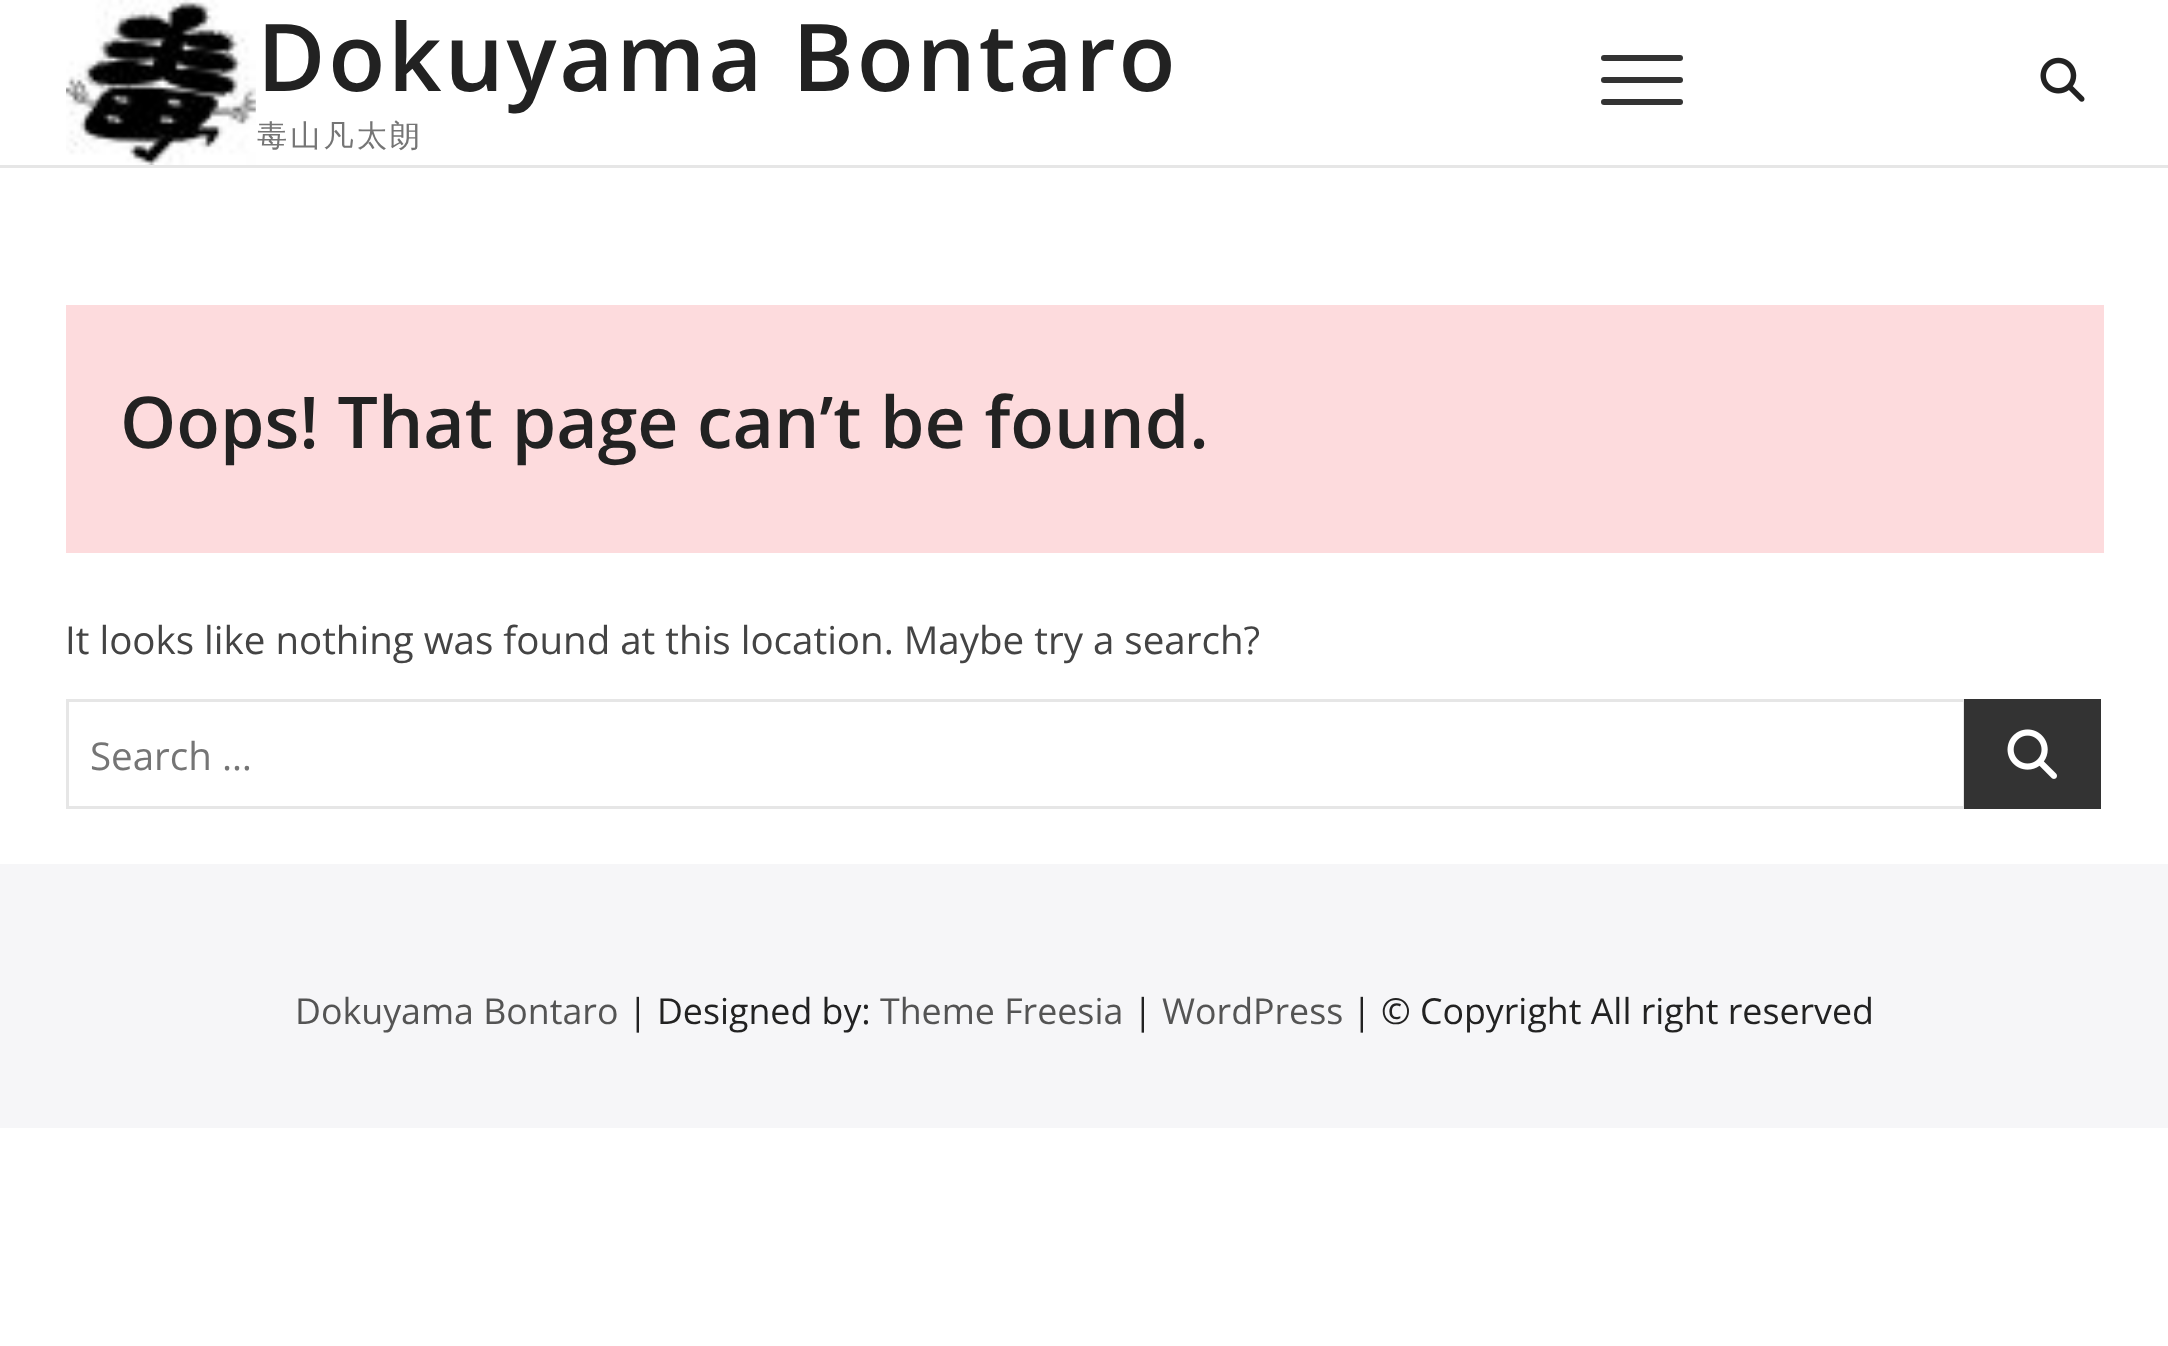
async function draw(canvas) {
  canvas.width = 2168
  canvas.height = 1346
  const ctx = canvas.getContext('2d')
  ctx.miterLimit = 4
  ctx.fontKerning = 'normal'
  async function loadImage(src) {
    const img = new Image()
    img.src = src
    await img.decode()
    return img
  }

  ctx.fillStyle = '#fff'
  ctx.fillRect(0, 0, 2168, 1346)
  ctx.fillStyle = '#e6e6e6'
  ctx.fillRect(0, 165, 2168, 3)
  ctx.drawImage(await loadImage('image0.png'), 66, 0, 190, 165)
  ctx.letterSpacing = '2.75px'
  ctx.font = '600 93.5px Open Sans'
  ctx.fillStyle = '#222'
  ctx.fillText('Dokuyama Bontaro', 257, 91)
  ctx.letterSpacing = '3px'
  ctx.font = '500 30.25px WenQuanYi Zen Hei'
  ctx.fillStyle = '#757575'
  ctx.fillText('毒山凡太朗', 257, 146)
  ctx.fillStyle = '#333'
  ctx.beginPath()
  ctx.roundRect(1601, 77, 82, 6, 3)
  ctx.fill()
  ctx.beginPath()
  ctx.roundRect(1601, 55, 82, 6, 3)
  ctx.fill()
  ctx.beginPath()
  ctx.roundRect(1601, 99, 82, 6, 3)
  ctx.fill()
  ctx.drawImage(await loadImage('image1.png'), 2040, 57, 45, 45)
  ctx.fillStyle = '#fddbdd'
  ctx.fillRect(66, 305, 2038, 248)
  ctx.letterSpacing = '0px'
  ctx.font = '600 71.5px Open Sans'
  ctx.fillStyle = '#222'
  ctx.fillText('Oops! That page can’t be found.', 120, 448)
  ctx.font = '38.5px Open Sans'
  ctx.fillStyle = '#444'
  ctx.fillText('It looks like nothing was found at this location. Maybe try a search?', 65, 654)
  ctx.strokeStyle = '#e6e6e6'
  ctx.lineWidth = 3
  ctx.strokeRect(67.5, 700.5, 1897, 107)
  ctx.fillStyle = '#757575'
  ctx.fillText('Search …', 90, 770)
  ctx.fillStyle = '#333'
  ctx.fillRect(1964, 699, 137, 110)
  ctx.drawImage(await loadImage('image2.png'), 2007, 729, 50, 50)
  ctx.fillStyle = '#f6f6f8'
  ctx.fillRect(0, 864, 2168, 264)
  ctx.font = '35.75px Open Sans'
  ctx.fillStyle = '#545454'
  ctx.fillText('Dokuyama Bontaro', 295, 1024)
  ctx.fillStyle = '#222'
  ctx.fillText('| Designed by:', 628, 1024)
  ctx.fillStyle = '#545454'
  ctx.fillText('Theme Freesia', 880, 1024)
  ctx.fillStyle = '#222'
  ctx.fillText('|', 1133, 1024)
  ctx.fillStyle = '#545454'
  ctx.fillText('WordPress', 1162, 1024)
  ctx.fillStyle = '#222'
  ctx.fillText('| © Copyright All right reserved', 1352, 1024)
}

draw(document.querySelector('canvas'))
